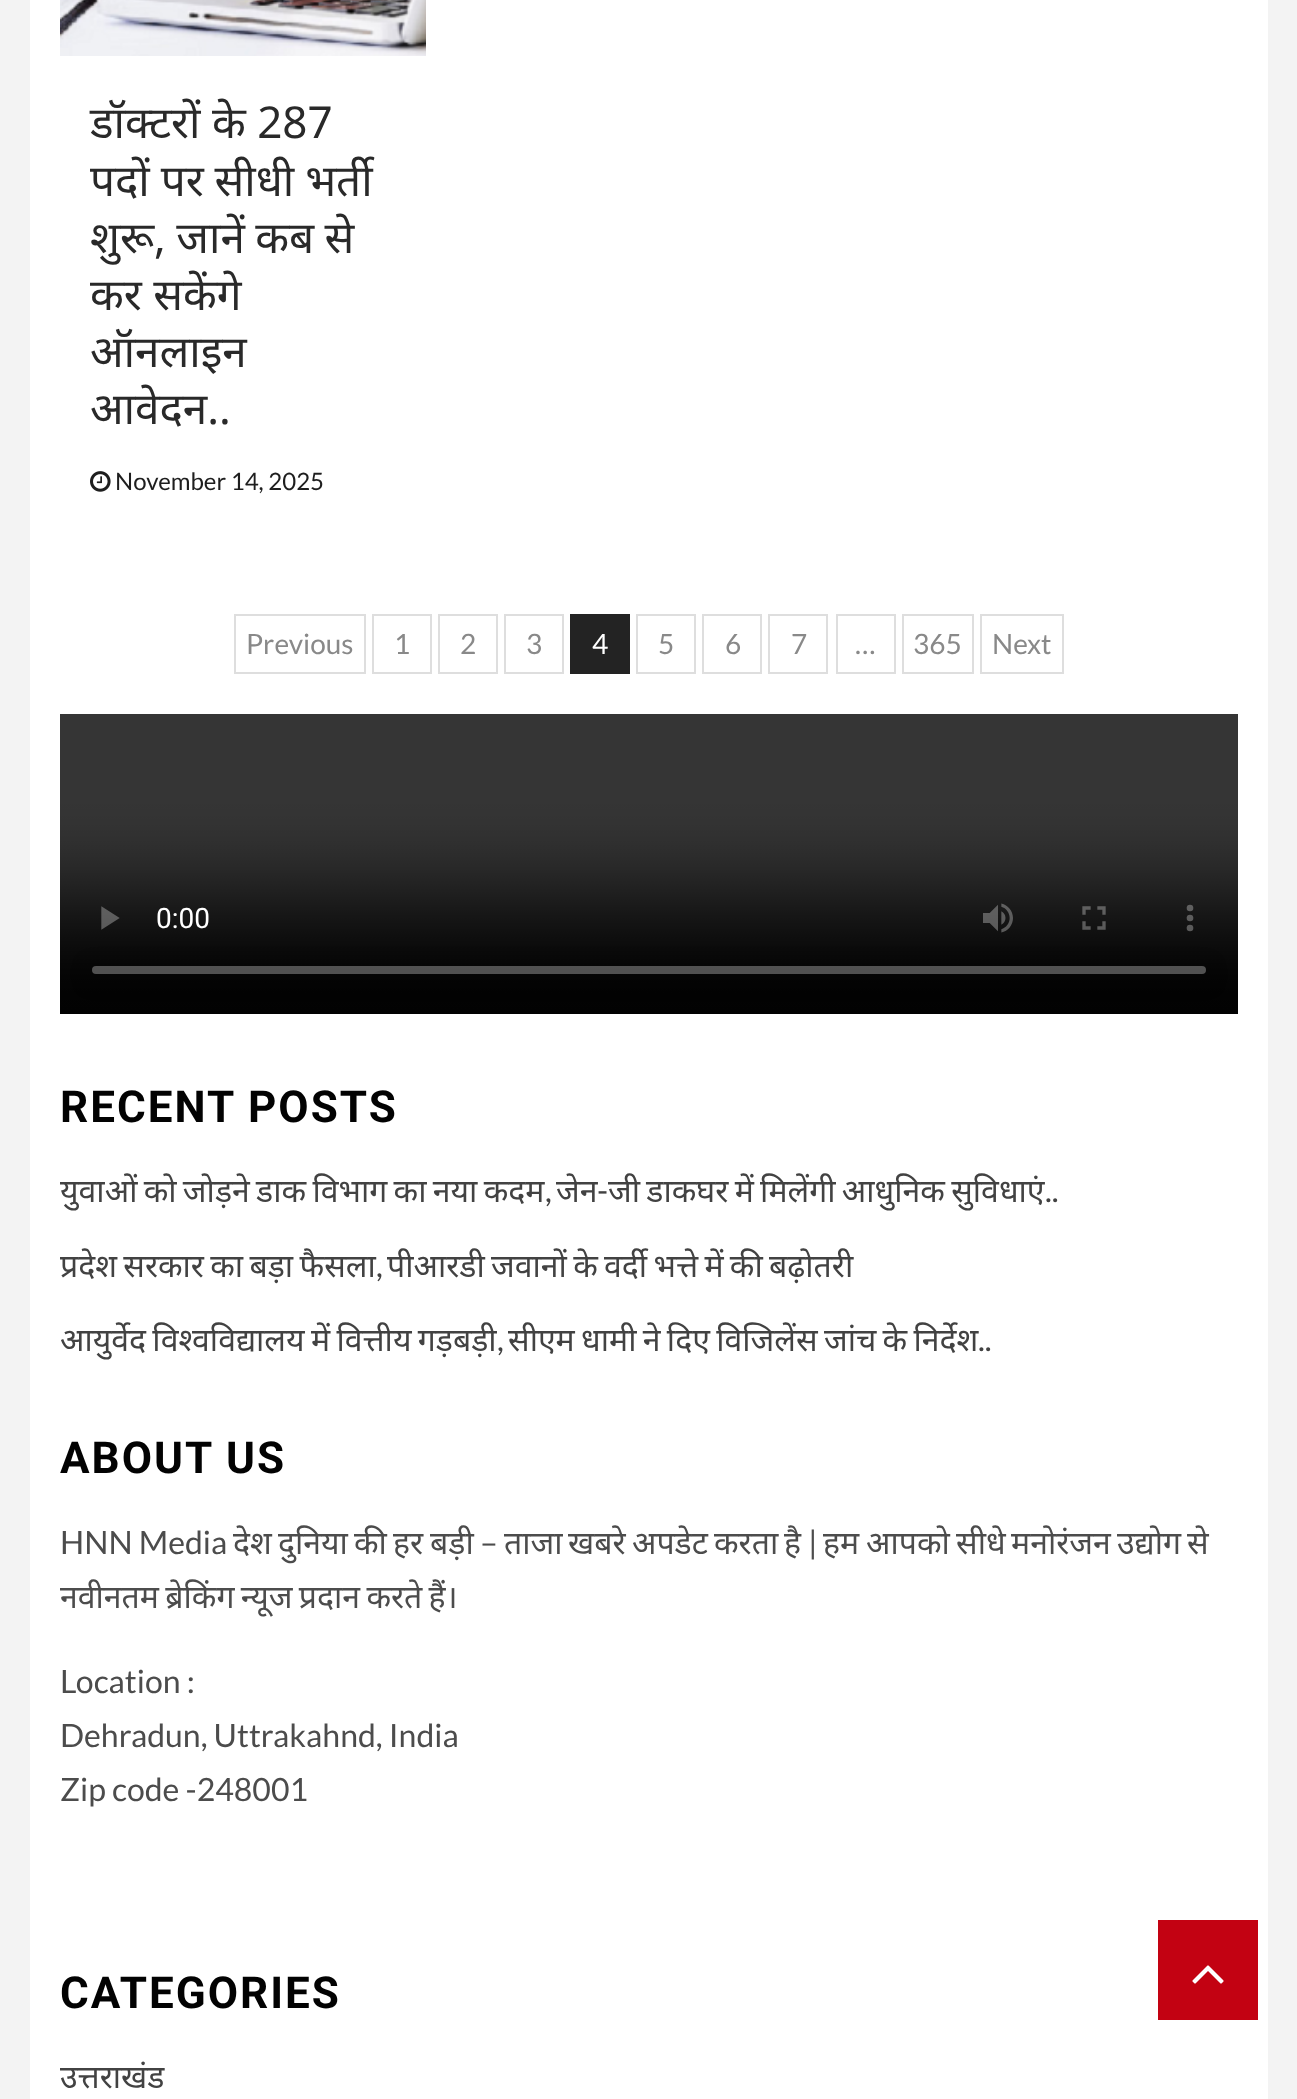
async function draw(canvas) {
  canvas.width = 1297
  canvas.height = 2099
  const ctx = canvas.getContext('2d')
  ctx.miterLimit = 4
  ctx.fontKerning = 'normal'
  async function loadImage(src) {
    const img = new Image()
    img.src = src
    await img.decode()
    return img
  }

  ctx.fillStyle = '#f3f3f3'
  ctx.fillRect(0, 0, 1297, 2099)
  ctx.fillStyle = '#fff'
  ctx.fillRect(30, 0, 1238, 2099)
  ctx.drawImage(await loadImage('image0.png'), 60, 0, 366, 56)
  ctx.font = '44px Noto Sans'
  ctx.fillStyle = '#292929'
  ctx.fillText('डॉक्टरों के 287', 90, 138)
  ctx.wordSpacing = '-0.5px'
  ctx.fillText('पदों पर सीधी भर्ती', 90, 196)
  ctx.wordSpacing = '-1px'
  ctx.fillText('शुरू, जानें कब से', 90, 253)
  ctx.wordSpacing = '0px'
  ctx.fillText('कर सकेंगे', 90, 310)
  ctx.fillText('ऑनलाइन', 90, 367)
  ctx.fillText('आवेदन..', 90, 424)
  ctx.drawImage(await loadImage('image1.png'), 90, 471, 21, 21)
  ctx.font = '24px Lato'
  ctx.fillStyle = '#1e1e1e'
  ctx.fillText('November 14, 2025', 115, 490)
  ctx.strokeStyle = '#dedede'
  ctx.lineWidth = 2
  ctx.strokeRect(235, 615, 130, 58)
  ctx.font = '28px Lato'
  ctx.fillStyle = '#898989'
  ctx.fillText('Previous', 246, 654)
  ctx.strokeRect(373, 615, 58, 58)
  ctx.fillText('1', 394, 654)
  ctx.strokeRect(439, 615, 58, 58)
  ctx.fillText('2', 460, 654)
  ctx.strokeRect(505, 615, 58, 58)
  ctx.fillText('3', 526, 654)
  ctx.fillStyle = '#232323'
  ctx.fillRect(570, 614, 60, 60)
  ctx.fillStyle = '#fff'
  ctx.fillText('4', 592, 654)
  ctx.strokeRect(637, 615, 58, 58)
  ctx.fillStyle = '#898989'
  ctx.fillText('5', 658, 654)
  ctx.strokeRect(703, 615, 58, 58)
  ctx.fillText('6', 725, 654)
  ctx.strokeRect(769, 615, 58, 58)
  ctx.fillText('7', 791, 654)
  ctx.strokeRect(837, 615, 58, 58)
  ctx.fillText('…', 855, 654)
  ctx.strokeRect(903, 615, 70, 58)
  ctx.fillText('365', 913, 654)
  ctx.strokeRect(981, 615, 82, 58)
  ctx.fillText('Next', 992, 654)
  ctx.drawImage(await loadImage('image2.png'), 60, 714, 1178, 300)
  ctx.letterSpacing = '2px'
  ctx.font = 'bold 44px Roboto'
  ctx.fillStyle = '#020202'
  ctx.fillText('RECENT POSTS', 60, 1122)
  ctx.letterSpacing = '0px'
  ctx.wordSpacing = '-2px'
  ctx.font = '32px Noto Sans'
  ctx.fillStyle = '#424242'
  ctx.fillText('युवाओं को जोड़ने डाक विभाग का नया कदम', 60, 1202)
  ctx.wordSpacing = '0px'
  ctx.font = '32px Lato'
  ctx.fillText(',', 545, 1202)
  ctx.font = '32px Noto Sans'
  ctx.fillText('जेन', 556, 1202)
  ctx.font = '32px Lato'
  ctx.fillText('-', 597, 1202)
  ctx.wordSpacing = '-2px'
  ctx.font = '32px Noto Sans'
  ctx.fillText('जी डाकघर में मिलेंगी आधुनिक सुविधाएं', 608, 1202)
  ctx.wordSpacing = '0px'
  ctx.font = '32px Lato'
  ctx.fillText('..', 1045, 1202)
  ctx.wordSpacing = '-2px'
  ctx.font = '32px Noto Sans'
  ctx.fillText('प्रदेश सरकार का बड़ा फैसला', 60, 1277)
  ctx.wordSpacing = '0px'
  ctx.font = '32px Lato'
  ctx.fillText(',', 376, 1277)
  ctx.wordSpacing = '-2px'
  ctx.font = '32px Noto Sans'
  ctx.fillText('पीआरडी जवानों के वर्दी भत्ते में की बढ़ोतरी', 387, 1277)
  ctx.fillText('आयुर्वेद विश्वविद्यालय में वित्तीय गड़बड़ी', 60, 1351)
  ctx.wordSpacing = '0px'
  ctx.font = '32px Lato'
  ctx.fillText(',', 497, 1351)
  ctx.wordSpacing = '-2px'
  ctx.font = '32px Noto Sans'
  ctx.fillText('सीएम धामी ने दिए विजिलेंस जांच के निर्देश', 508, 1351)
  ctx.wordSpacing = '0px'
  ctx.font = '32px Lato'
  ctx.fillText('..', 978, 1351)
  ctx.letterSpacing = '2px'
  ctx.font = 'bold 44px Roboto'
  ctx.fillStyle = '#020202'
  ctx.fillText('ABOUT US', 60, 1473)
  ctx.letterSpacing = '0px'
  ctx.font = '32px Lato'
  ctx.fillStyle = '#4c4c4c'
  ctx.fillText('HNN Media', 60, 1554)
  ctx.font = '32px Noto Sans'
  ctx.fillText('देश', 233, 1554)
  ctx.fillText('दुनिया', 278, 1554)
  ctx.fillText('की', 354, 1554)
  ctx.fillText('हर', 393, 1554)
  ctx.fillText('बड़ी', 430, 1554)
  ctx.font = '32px Lato'
  ctx.fillText('–', 480, 1554)
  ctx.font = '32px Noto Sans'
  ctx.fillText('ताजा', 504, 1554)
  ctx.fillText('खबरे', 568, 1554)
  ctx.fillText('अपडेट', 632, 1554)
  ctx.fillText('करता', 714, 1554)
  ctx.fillText('है', 784, 1554)
  ctx.font = '32px Lato'
  ctx.fillText('|', 808, 1554)
  ctx.font = '32px Noto Sans'
  ctx.fillText('हम', 823, 1554)
  ctx.fillText('आपको', 866, 1554)
  ctx.fillText('सीधे', 956, 1554)
  ctx.fillText('मनोरंजन', 1011, 1554)
  ctx.fillText('उद्योग', 1117, 1554)
  ctx.fillText('से', 1187, 1554)
  ctx.wordSpacing = '-2px'
  ctx.fillText('नवीनतम ब्रेकिंग न्यूज प्रदान करते हैं।', 60, 1608)
  ctx.wordSpacing = '0px'
  ctx.font = '32px Lato'
  ctx.fillText('Location :', 60, 1693)
  ctx.fillText('Dehradun, Uttrakahnd, India', 60, 1747)
  ctx.fillText('Zip code -248001', 60, 1801)
  ctx.letterSpacing = '2px'
  ctx.font = 'bold 44px Roboto'
  ctx.fillStyle = '#020202'
  ctx.fillText('CATEGORIES', 60, 2008)
  ctx.letterSpacing = '0px'
  ctx.font = '32px Noto Sans'
  ctx.fillStyle = '#424242'
  ctx.fillText('उत्तराखंड', 60, 2088)
  ctx.fillStyle = '#c30212'
  ctx.fillRect(1158, 1920, 100, 100)
  ctx.drawImage(await loadImage('image3.png'), 1192, 1965, 32, 19)
}

draw(document.querySelector('canvas'))
